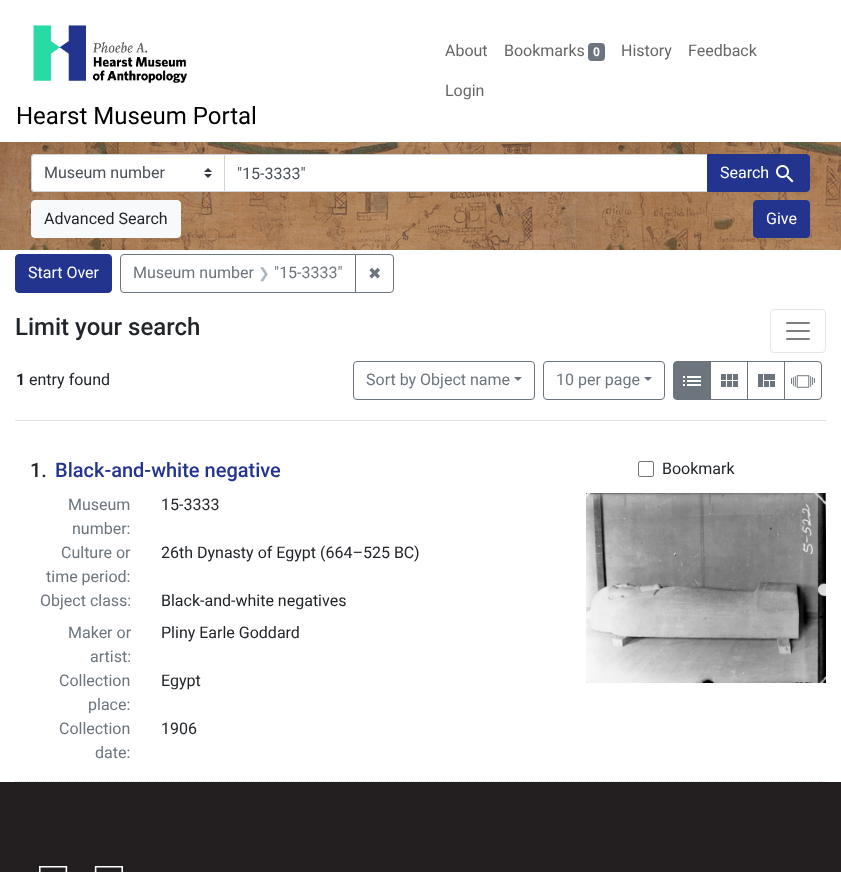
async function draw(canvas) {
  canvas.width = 841
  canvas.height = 872
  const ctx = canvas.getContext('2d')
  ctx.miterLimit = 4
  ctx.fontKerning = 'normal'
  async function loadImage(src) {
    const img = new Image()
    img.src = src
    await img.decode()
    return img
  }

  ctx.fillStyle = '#fff'
  ctx.fillRect(0, 0, 841, 872)
  ctx.font = '16px Roboto'
  ctx.fillStyle = '#666'
  ctx.fillText('About', 445, 56)
  ctx.fillText('Bookmarks', 504, 56)
  ctx.fillStyle = '#6c757d'
  ctx.beginPath()
  ctx.roundRect(588, 43, 17, 18, 4)
  ctx.fill()
  ctx.font = 'bold 12px Roboto'
  ctx.fillStyle = '#fff'
  ctx.fillText('0', 593, 56)
  ctx.font = '16px Roboto'
  ctx.fillStyle = '#666'
  ctx.fillText('History', 621, 56)
  ctx.fillText('Feedback', 688, 56)
  ctx.fillText('Login', 445, 96)
  ctx.drawImage(await loadImage('image0.png'), 33, 25, 154, 58)
  ctx.font = '24px Roboto'
  ctx.fillStyle = '#000'
  ctx.fillText('Hearst Museum Portal', 16, 124)
  ctx.drawImage(await loadImage('image1.png'), 0, 142, 841, 108)
  ctx.fillStyle = '#fff'
  ctx.beginPath()
  ctx.roundRect(31, 154, 194, 38, [4, 0, 0, 4])
  ctx.fill()
  ctx.drawImage(await loadImage('image2.png'), 204, 168, 8, 10)
  ctx.beginPath()
  ctx.roundRect(31.5, 154.5, 193, 37, [3.5, 0, 0, 3.5])
  ctx.strokeStyle = '#ced4da'
  ctx.stroke()
  ctx.font = '16px Roboto'
  ctx.fillStyle = '#495057'
  ctx.fillText('Museum number', 44, 178)
  ctx.fillStyle = '#fff'
  ctx.beginPath()
  ctx.rect(224.5, 154.5, 483, 37)
  ctx.fill()
  ctx.stroke()
  ctx.fillStyle = '#495057'
  ctx.fillText('"15-3333"', 237, 179)
  ctx.fillStyle = '#22348d'
  ctx.beginPath()
  ctx.roundRect(707.5, 154.5, 102, 37, [0, 3.5, 3.5, 0])
  ctx.fill()
  ctx.strokeStyle = '#22348d'
  ctx.stroke()
  ctx.fillStyle = '#fff'
  ctx.fillText('Search', 720, 178)
  ctx.drawImage(await loadImage('image3.png'), 776, 165, 18, 18)
  ctx.fillStyle = '#f8f9fa'
  ctx.beginPath()
  ctx.roundRect(31.5, 200.5, 149, 37, 3.5)
  ctx.fill()
  ctx.strokeStyle = '#f8f9fa'
  ctx.stroke()
  ctx.fillStyle = '#212529'
  ctx.fillText('Advanced Search', 44, 224)
  ctx.fillStyle = '#22348d'
  ctx.beginPath()
  ctx.roundRect(753.5, 200.5, 56, 37, 3.5)
  ctx.fill()
  ctx.strokeStyle = '#22348d'
  ctx.stroke()
  ctx.fillStyle = '#fff'
  ctx.fillText('Give', 766, 224)
  ctx.fillStyle = '#22348d'
  ctx.beginPath()
  ctx.roundRect(15.5, 254.5, 96, 38, 3.5)
  ctx.fill()
  ctx.stroke()
  ctx.fillStyle = '#fff'
  ctx.fillText('Start Over', 28, 278)
  ctx.beginPath()
  ctx.roundRect(120.5, 254.5, 235, 38, [3.5, 0, 0, 3.5])
  ctx.strokeStyle = '#6c757d'
  ctx.stroke()
  ctx.fillStyle = '#6c757d'
  ctx.fillText('Museum number', 133, 278)
  ctx.font = '14px DejaVu Sans'
  ctx.fillStyle = '#adb5bd'
  ctx.fillText('❯', 258, 278)
  ctx.font = '16px Roboto'
  ctx.fillStyle = '#6c757d'
  ctx.fillText('"15-3333"', 274, 278)
  ctx.beginPath()
  ctx.roundRect(355.5, 254.5, 38, 38, [0, 3.5, 3.5, 0])
  ctx.stroke()
  ctx.font = '16px DejaVu Sans'
  ctx.fillText('✖', 368, 279)
  ctx.font = '500 24px Roboto'
  ctx.fillStyle = '#212529'
  ctx.fillText('Limit your search', 15, 335)
  ctx.beginPath()
  ctx.roundRect(770.5, 309.5, 55, 43, 3.5)
  ctx.strokeStyle = '#e6e6e6'
  ctx.stroke()
  ctx.drawImage(await loadImage('image4.png'), 786, 322, 24, 18)
  ctx.fillStyle = '#dee2e6'
  ctx.fillRect(15, 420, 811, 1)
  ctx.font = 'bold 16px Roboto'
  ctx.fillStyle = '#212529'
  ctx.fillText('1', 16, 385)
  ctx.font = '16px Roboto'
  ctx.fillText('entry found', 29, 385)
  ctx.beginPath()
  ctx.roundRect(353.5, 361.5, 181, 38, 3.5)
  ctx.strokeStyle = '#6c757d'
  ctx.stroke()
  ctx.fillStyle = '#6c757d'
  ctx.fillText('Sort by Object name', 366, 385)
  ctx.beginPath()
  ctx.moveTo(514, 377)
  ctx.lineTo(522, 377)
  ctx.lineTo(518, 381)
  ctx.closePath()
  ctx.fill()
  ctx.beginPath()
  ctx.roundRect(543.5, 361.5, 121, 38, 3.5)
  ctx.stroke()
  ctx.fillText('10 per page', 556, 385)
  ctx.beginPath()
  ctx.moveTo(644, 377)
  ctx.lineTo(652, 377)
  ctx.lineTo(648, 381)
  ctx.closePath()
  ctx.fill()
  ctx.strokeRect(710.5, 361.5, 37, 38)
  ctx.beginPath()
  ctx.roundRect(673.5, 361.5, 37, 38, [3.5, 0, 0, 3.5])
  ctx.fill()
  ctx.stroke()
  ctx.drawImage(await loadImage('image5.png'), 683, 376, 18, 10)
  ctx.drawImage(await loadImage('image6.png'), 721, 374, 17, 13)
  ctx.strokeRect(747.5, 361.5, 37, 38)
  ctx.drawImage(await loadImage('image7.png'), 758, 374, 17, 13)
  ctx.beginPath()
  ctx.roundRect(784.5, 361.5, 37, 38, [0, 3.5, 3.5, 0])
  ctx.stroke()
  ctx.drawImage(await loadImage('image8.png'), 791, 375, 24, 13)
  ctx.beginPath()
  ctx.moveTo(15, 781.5)
  ctx.lineTo(826, 781.5)
  ctx.strokeStyle = '#dee2e6'
  ctx.setLineDash([1, 1])
  ctx.stroke()
  ctx.font = '500 20px Roboto'
  ctx.fillStyle = '#212529'
  ctx.fillText('1.', 30, 477)
  ctx.fillStyle = '#22348d'
  ctx.fillText('Black-and-white negative', 55, 477)
  ctx.beginPath()
  ctx.roundRect(638.5, 461.5, 15, 15, 1.5)
  ctx.strokeStyle = '#767676'
  ctx.setLineDash([])
  ctx.stroke()
  ctx.font = '16px Roboto'
  ctx.fillStyle = '#212529'
  ctx.fillText('Bookmark', 662, 474)
  ctx.fillStyle = '#6c757d'
  ctx.fillText('Museum', 68, 510)
  ctx.fillText('number:', 72, 534)
  ctx.fillStyle = '#212529'
  ctx.fillText('15-3333', 161, 510)
  ctx.fillStyle = '#6c757d'
  ctx.fillText('Culture or', 61, 558)
  ctx.fillText('time period:', 46, 582)
  ctx.fillStyle = '#212529'
  ctx.fillText('26th Dynasty of Egypt (664–525 BC)', 161, 558)
  ctx.fillStyle = '#6c757d'
  ctx.fillText('Object class:', 40, 606)
  ctx.fillStyle = '#212529'
  ctx.fillText('Black-and-white negatives', 161, 606)
  ctx.fillStyle = '#6c757d'
  ctx.fillText('Maker or', 68, 638)
  ctx.fillText('artist:', 90, 662)
  ctx.fillStyle = '#212529'
  ctx.fillText('Pliny Earle Goddard', 161, 638)
  ctx.fillStyle = '#6c757d'
  ctx.fillText('Collection', 59, 686)
  ctx.fillText('place:', 88, 710)
  ctx.fillStyle = '#212529'
  ctx.fillText('Egypt', 161, 686)
  ctx.fillStyle = '#6c757d'
  ctx.fillText('Collection', 59, 734)
  ctx.fillText('date:', 95, 758)
  ctx.fillStyle = '#212529'
  ctx.fillText('1906', 161, 734)
  ctx.drawImage(await loadImage('image9.png'), 586, 493, 240, 190)
  ctx.fillStyle = '#231f20'
  ctx.fillRect(0, 782, 841, 90)
  ctx.drawImage(await loadImage('image10.png'), 39, 866, 84, 6)
}

draw(document.querySelector('canvas'))
